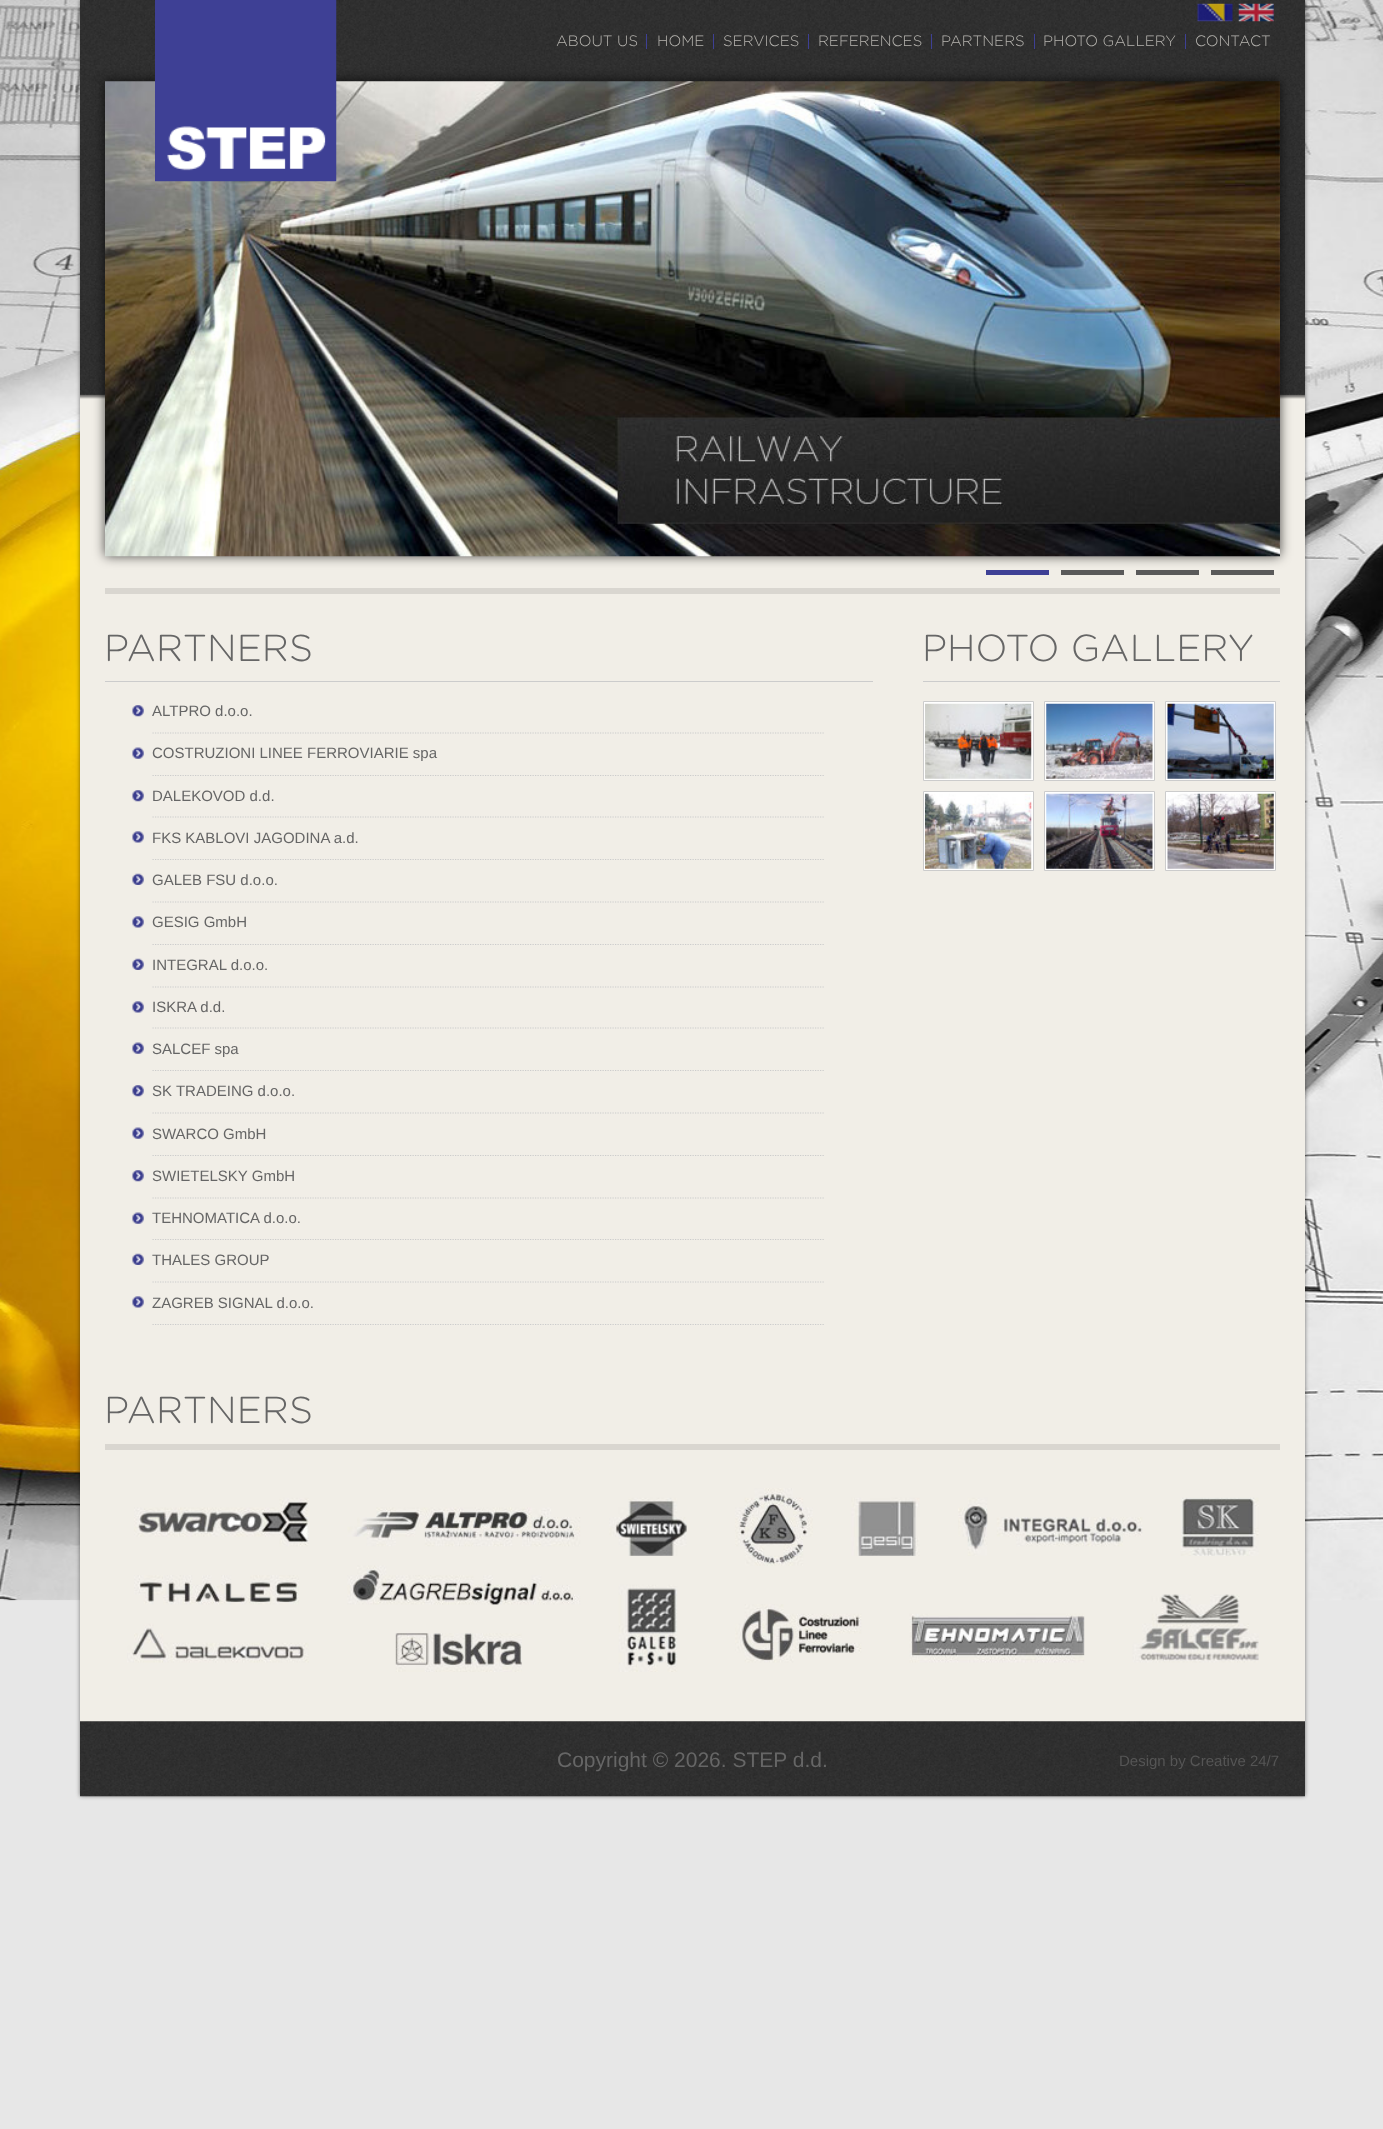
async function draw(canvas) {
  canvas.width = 1383
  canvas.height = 2129
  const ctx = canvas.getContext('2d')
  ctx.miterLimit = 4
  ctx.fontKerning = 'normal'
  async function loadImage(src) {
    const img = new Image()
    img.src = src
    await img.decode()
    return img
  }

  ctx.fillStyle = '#e7e7e7'
  ctx.fillRect(0, 0, 1383, 2129)
  ctx.drawImage(await loadImage('image0.png'), 0, 0, 1383, 1601)
  ctx.fillStyle = '#00000080'
  ctx.filter = 'blur(2px)'
  ctx.beginPath()
  ctx.rect(80, 0, 1225, 1796)
  ctx.fill()
  ctx.filter = 'none'
  ctx.fillStyle = '#f1eee7'
  ctx.fillRect(80, 399, 1225, 1323)
  ctx.drawImage(await loadImage('image1.png'), 80, 0, 1225, 399)
  ctx.fillStyle = '#d9d6d0'
  ctx.fillRect(105, 588, 1175, 6)
  ctx.fillStyle = '#000000b3'
  ctx.filter = 'blur(6px)'
  ctx.beginPath()
  ctx.rect(105, 81, 1175, 475)
  ctx.fill()
  ctx.filter = 'none'
  ctx.drawImage(await loadImage('image5.png'), 105, 81, 1175, 476)
  ctx.drawImage(await loadImage('image2.png'), 155, 0, 182, 182)
  ctx.drawImage(await loadImage('image3.png'), 1197, 3, 36, 19)
  ctx.drawImage(await loadImage('image4.png'), 1238, 3, 36, 19)
  ctx.fillStyle = '#3e4095'
  ctx.fillRect(646, 34, 1, 15)
  ctx.font = '300 15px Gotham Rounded'
  ctx.fillStyle = '#b7b5b0'
  ctx.fillText('ABOUT US', 556, 46)
  ctx.fillStyle = '#3e4095'
  ctx.fillRect(713, 34, 1, 15)
  ctx.fillStyle = '#b7b5b0'
  ctx.fillText('HOME', 657, 46)
  ctx.fillStyle = '#3e4095'
  ctx.fillRect(808, 34, 1, 15)
  ctx.fillStyle = '#b7b5b0'
  ctx.fillText('SERVICES', 723, 46)
  ctx.fillStyle = '#3e4095'
  ctx.fillRect(931, 34, 1, 15)
  ctx.fillStyle = '#b7b5b0'
  ctx.fillText('REFERENCES', 818, 46)
  ctx.fillStyle = '#3e4095'
  ctx.fillRect(1034, 34, 1, 15)
  ctx.fillStyle = '#b7b5b0'
  ctx.fillText('PARTNERS', 941, 46)
  ctx.fillStyle = '#3e4095'
  ctx.fillRect(1185, 34, 1, 15)
  ctx.fillStyle = '#b7b5b0'
  ctx.fillText('PHOTO GALLERY', 1043, 46)
  ctx.fillText('CONTACT', 1195, 46)
  ctx.fillStyle = '#3e4095'
  ctx.fillRect(986, 570, 63, 5)
  ctx.fillStyle = '#595959'
  ctx.fillRect(1061, 570, 63, 5)
  ctx.fillRect(1136, 570, 63, 5)
  ctx.fillRect(1211, 570, 63, 5)
  ctx.fillStyle = '#ccc'
  ctx.fillRect(105, 681, 768, 1)
  ctx.font = '300 37.5px Gotham Rounded'
  ctx.fillStyle = '#666'
  ctx.fillText('PARTNERS', 104, 661)
  ctx.beginPath()
  ctx.moveTo(152.5, 733)
  ctx.lineTo(825, 733)
  ctx.strokeStyle = '#ccc'
  ctx.lineWidth = 1.2
  ctx.setLineDash([1.25, 1.25])
  ctx.stroke()
  ctx.drawImage(await loadImage('image6.png'), 132, 705, 12, 12)
  ctx.font = '15px Liberation Sans'
  ctx.fillText('ALTPRO d.o.o.', 152, 716)
  ctx.beginPath()
  ctx.moveTo(152.5, 775.5)
  ctx.lineTo(825, 775.5)
  ctx.stroke()
  ctx.drawImage(await loadImage('image7.png'), 132, 747, 12, 12)
  ctx.fillText('COSTRUZIONI LINEE FERROVIARIE spa', 152, 758)
  ctx.beginPath()
  ctx.moveTo(152.5, 817)
  ctx.lineTo(825, 817)
  ctx.stroke()
  ctx.drawImage(await loadImage('image6.png'), 132, 790, 12, 12)
  ctx.fillText('DALEKOVOD d.d.', 152, 801)
  ctx.beginPath()
  ctx.moveTo(152.5, 859.5)
  ctx.lineTo(825, 859.5)
  ctx.stroke()
  ctx.drawImage(await loadImage('image8.png'), 132, 831, 12, 12)
  ctx.fillText('FKS KABLOVI JAGODINA a.d.', 152, 843)
  ctx.beginPath()
  ctx.moveTo(152.5, 902)
  ctx.lineTo(825, 902)
  ctx.stroke()
  ctx.drawImage(await loadImage('image9.png'), 132, 873, 12, 12)
  ctx.fillText('GALEB FSU d.o.o.', 152, 885)
  ctx.beginPath()
  ctx.moveTo(152.5, 944.5)
  ctx.lineTo(825, 944.5)
  ctx.stroke()
  ctx.drawImage(await loadImage('image8.png'), 132, 916, 12, 12)
  ctx.fillText('GESIG GmbH', 152, 927)
  ctx.beginPath()
  ctx.moveTo(152.5, 987)
  ctx.lineTo(825, 987)
  ctx.stroke()
  ctx.drawImage(await loadImage('image9.png'), 132, 958, 12, 12)
  ctx.fillText('INTEGRAL d.o.o.', 152, 970)
  ctx.beginPath()
  ctx.moveTo(152.5, 1028)
  ctx.lineTo(825, 1028)
  ctx.stroke()
  ctx.drawImage(await loadImage('image8.png'), 132, 1001, 12, 12)
  ctx.fillText('ISKRA d.d.', 152, 1012)
  ctx.beginPath()
  ctx.moveTo(152.5, 1070.5)
  ctx.lineTo(825, 1070.5)
  ctx.stroke()
  ctx.drawImage(await loadImage('image7.png'), 132, 1042, 12, 12)
  ctx.fillText('SALCEF spa', 152, 1054)
  ctx.beginPath()
  ctx.moveTo(152.5, 1113)
  ctx.lineTo(825, 1113)
  ctx.stroke()
  ctx.drawImage(await loadImage('image6.png'), 132, 1085, 12, 12)
  ctx.fillText('SK TRADEING d.o.o.', 152, 1096)
  ctx.beginPath()
  ctx.moveTo(152.5, 1155.5)
  ctx.lineTo(825, 1155.5)
  ctx.stroke()
  ctx.drawImage(await loadImage('image7.png'), 132, 1127, 12, 12)
  ctx.fillText('SWARCO GmbH', 152, 1139)
  ctx.beginPath()
  ctx.moveTo(152.5, 1198)
  ctx.lineTo(825, 1198)
  ctx.stroke()
  ctx.drawImage(await loadImage('image10.png'), 132, 1170, 12, 12)
  ctx.fillText('SWIETELSKY GmbH', 152, 1181)
  ctx.beginPath()
  ctx.moveTo(152.5, 1239.5)
  ctx.lineTo(825, 1239.5)
  ctx.stroke()
  ctx.drawImage(await loadImage('image7.png'), 132, 1212, 12, 12)
  ctx.fillText('TEHNOMATICA d.o.o.', 152, 1223)
  ctx.beginPath()
  ctx.moveTo(152.5, 1282)
  ctx.lineTo(825, 1282)
  ctx.stroke()
  ctx.drawImage(await loadImage('image9.png'), 132, 1253, 12, 12)
  ctx.fillText('THALES GROUP', 152, 1265)
  ctx.beginPath()
  ctx.moveTo(152.5, 1324.5)
  ctx.lineTo(825, 1324.5)
  ctx.stroke()
  ctx.drawImage(await loadImage('image8.png'), 132, 1296, 12, 12)
  ctx.fillText('ZAGREB SIGNAL d.o.o.', 152, 1308)
  ctx.fillStyle = '#ccc'
  ctx.fillRect(923, 681, 357, 1)
  ctx.font = '300 37.5px Gotham Rounded'
  ctx.fillStyle = '#666'
  ctx.fillText('PHOTO GALLERY', 922, 661)
  ctx.fillStyle = '#fff'
  ctx.beginPath()
  ctx.rect(923.5, 701.5, 110, 79)
  ctx.fill()
  ctx.lineWidth = 1
  ctx.setLineDash([])
  ctx.stroke()
  ctx.drawImage(await loadImage('image11.png'), 925, 703, 107, 76)
  ctx.beginPath()
  ctx.rect(1044.5, 701.5, 110, 79)
  ctx.fill()
  ctx.stroke()
  ctx.drawImage(await loadImage('image12.png'), 1046, 703, 107, 76)
  ctx.beginPath()
  ctx.rect(1165.5, 701.5, 110, 79)
  ctx.fill()
  ctx.stroke()
  ctx.drawImage(await loadImage('image13.png'), 1167, 703, 107, 76)
  ctx.beginPath()
  ctx.rect(923.5, 791.5, 110, 79)
  ctx.fill()
  ctx.stroke()
  ctx.drawImage(await loadImage('image14.png'), 925, 793, 107, 76)
  ctx.beginPath()
  ctx.rect(1044.5, 791.5, 110, 79)
  ctx.fill()
  ctx.stroke()
  ctx.drawImage(await loadImage('image15.png'), 1046, 793, 107, 76)
  ctx.beginPath()
  ctx.rect(1165.5, 791.5, 110, 79)
  ctx.fill()
  ctx.stroke()
  ctx.drawImage(await loadImage('image16.png'), 1167, 793, 107, 76)
  ctx.fillStyle = '#d9d6d0'
  ctx.fillRect(105, 1444, 1175, 6)
  ctx.fillStyle = '#666'
  ctx.fillText('PARTNERS', 104, 1423)
  ctx.drawImage(await loadImage('image17.png'), 127, 1488, 1132, 184)
  ctx.drawImage(await loadImage('image18.png'), 80, 1721, 1225, 76)
  ctx.font = '21px Liberation Sans'
  ctx.fillText('Copyright © 2026. STEP d.d.', 557, 1767)
  ctx.font = '15px Liberation Sans'
  ctx.fillStyle = '#555'
  ctx.fillText('Design by Creative 24/7', 1119, 1766)
}

draw(document.querySelector('canvas'))
